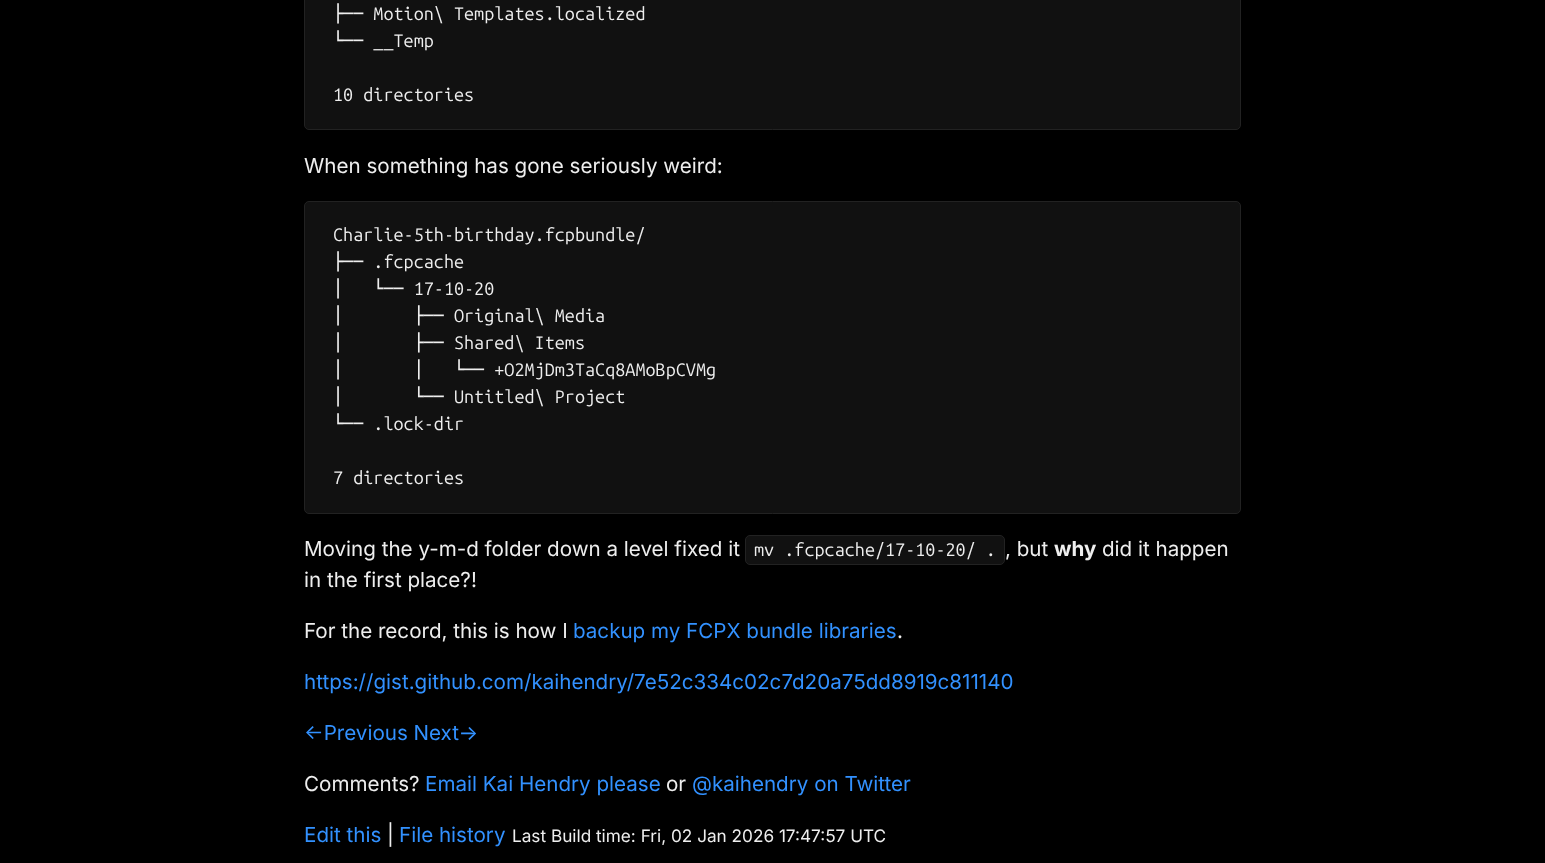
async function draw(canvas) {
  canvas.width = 1545
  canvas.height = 863
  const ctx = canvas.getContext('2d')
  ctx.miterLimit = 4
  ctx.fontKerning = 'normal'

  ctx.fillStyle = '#000'
  ctx.fillRect(0, 0, 1545, 863)
  ctx.fillStyle = '#111'
  ctx.beginPath()
  ctx.roundRect(304.5, -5.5, 936, 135, 4.5)
  ctx.fill()
  ctx.strokeStyle = '#222'
  ctx.stroke()
  ctx.font = '18px Ubuntu Mono'
  ctx.fillStyle = '#eee'
  ctx.fillText('├── Motion\\ Templates.localized', 333, 20)
  ctx.fillText('└── __Temp', 333, 47)
  ctx.fillText('10 directories', 333, 101)
  ctx.font = '20.6px Inter'
  ctx.fillText('When something has gone seriously weird:', 304, 173)
  ctx.fillStyle = '#111'
  ctx.beginPath()
  ctx.roundRect(304.5, 201.5, 936, 312, 4.5)
  ctx.fill()
  ctx.stroke()
  ctx.font = '18px Ubuntu Mono'
  ctx.fillStyle = '#eee'
  ctx.fillText('Charlie-5th-birthday.fcpbundle/', 333, 241)
  ctx.fillText('├── .fcpcache', 333, 268)
  ctx.fillText('│   └── 17-10-20', 333, 295)
  ctx.fillText('│       ├── Original\\ Media', 333, 322)
  ctx.fillText('│       ├── Shared\\ Items', 333, 349)
  ctx.fillText('│       │   └── +O2MjDm3TaCq8AMoBpCVMg', 333, 376)
  ctx.fillText('│       └── Untitled\\ Project', 333, 403)
  ctx.fillText('└── .lock-dir', 333, 430)
  ctx.fillText('7 directories', 333, 484)
  ctx.font = '20.6px Inter'
  ctx.fillText('Moving the y-m-d folder down a level fixed it', 304, 556)
  ctx.fillStyle = '#111'
  ctx.beginPath()
  ctx.roundRect(745.5, 535.5, 259, 29, 4.5)
  ctx.fill()
  ctx.stroke()
  ctx.font = '18px Ubuntu Mono'
  ctx.fillStyle = '#eee'
  ctx.fillText('mv .fcpcache/17-10-20/ .', 754, 556)
  ctx.font = '20.6px Inter'
  ctx.fillText(', but', 1005, 556)
  ctx.font = 'bold 20.6px Inter'
  ctx.fillText('why', 1054, 556)
  ctx.font = '20.6px Inter'
  ctx.fillText('did it happen', 1102, 556)
  ctx.fillText('in the first place?!', 304, 587)
  ctx.fillText('For the record, this is how I', 304, 638)
  ctx.fillStyle = '#3291ff'
  ctx.fillText('backup my FCPX bundle libraries', 573, 638)
  ctx.fillStyle = '#eee'
  ctx.fillText('.', 897, 638)
  ctx.fillStyle = '#3291ff'
  ctx.fillText('https://gist.github.com/kaihendry/7e52c334c02c7d20a75dd8919c811140', 304, 689)
  ctx.fillText('←Previous Next→', 304, 740)
  ctx.fillStyle = '#eee'
  ctx.fillText('Comments?', 304, 791)
  ctx.fillStyle = '#3291ff'
  ctx.fillText('Email Kai Hendry please', 425, 791)
  ctx.fillStyle = '#eee'
  ctx.fillText('or', 666, 791)
  ctx.fillStyle = '#3291ff'
  ctx.fillText('@kaihendry on Twitter', 692, 791)
  ctx.fillText('Edit this', 304, 842)
  ctx.fillStyle = '#eee'
  ctx.fillText('|', 387, 842)
  ctx.fillStyle = '#3291ff'
  ctx.fillText('File history', 399, 842)
  ctx.font = '17.2px Inter'
  ctx.fillStyle = '#eee'
  ctx.fillText('Last Build time: Fri, 02 Jan 2026 17:47:57 UTC', 512, 842)
}

draw(document.querySelector('canvas'))
